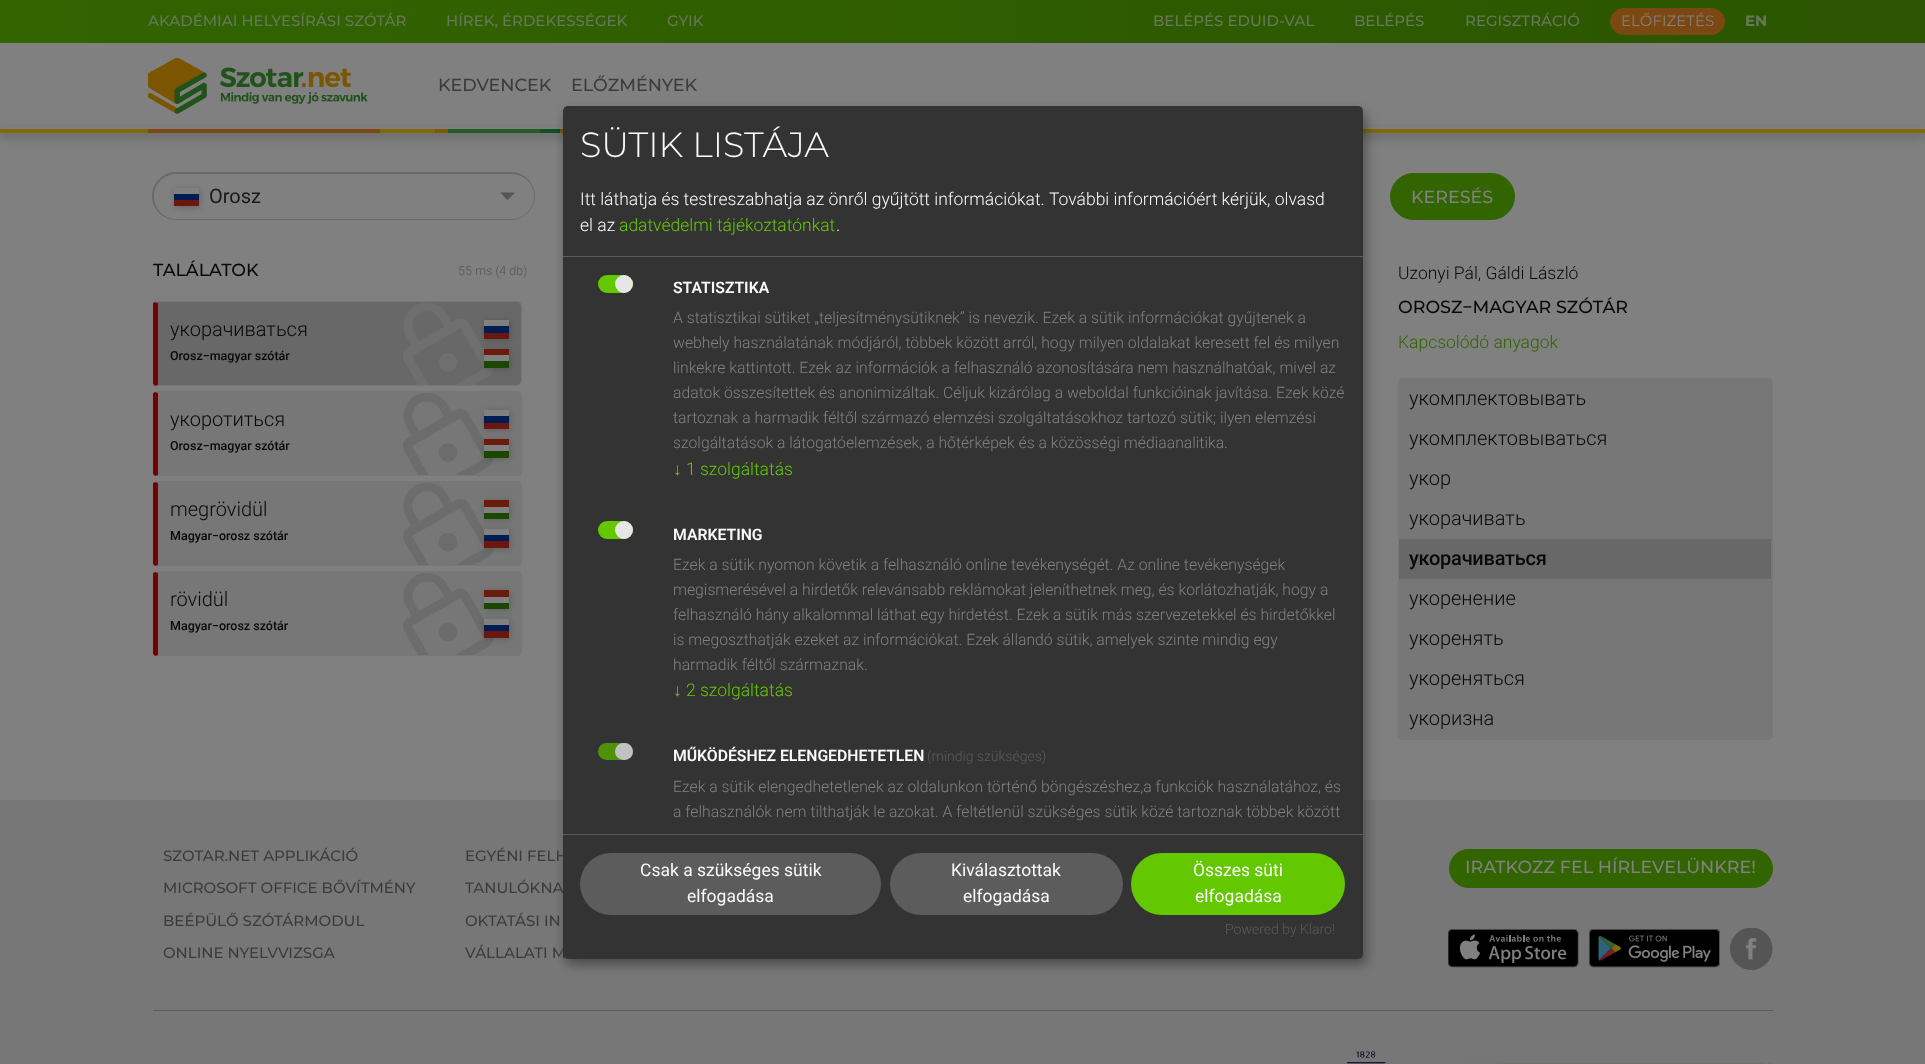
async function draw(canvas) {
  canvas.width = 1925
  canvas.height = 1064
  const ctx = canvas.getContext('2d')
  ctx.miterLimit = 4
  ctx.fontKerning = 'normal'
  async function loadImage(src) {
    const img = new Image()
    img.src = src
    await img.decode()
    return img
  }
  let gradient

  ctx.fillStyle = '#808080'
  ctx.fillRect(0, 0, 1925, 1064)
  gradient = ctx.createLinearGradient(0, 21, 1925, 21)
  gradient.addColorStop(0, '#326400')
  gradient.addColorStop(1, '#2b5500')
  ctx.fillStyle = gradient
  ctx.fillRect(0, 0, 1925, 43)
  ctx.font = '500 15px Montserrat'
  ctx.fillStyle = '#68775a'
  ctx.fillText('AKADÉMIAI HELYESÍRÁSI SZÓTÁR', 148, 26)
  ctx.fillText('HÍREK, ÉRDEKESSÉGEK', 446, 26)
  ctx.fillText('GYIK', 667, 26)
  ctx.fillText('BELÉPÉS EDUID-VAL', 1153, 26)
  ctx.fillText('BELÉPÉS', 1354, 26)
  ctx.fillText('REGISZTRÁCIÓ', 1465, 26)
  ctx.fillStyle = '#7c4811'
  ctx.beginPath()
  ctx.roundRect(1610.5, 8.5, 114, 26, 13)
  ctx.fill()
  ctx.strokeStyle = '#7c4811'
  ctx.stroke()
  ctx.font = '15px Montserrat'
  ctx.fillStyle = '#808080'
  ctx.fillText('ELŐFIZETÉS', 1621, 26)
  ctx.font = 'bold 15px Montserrat'
  ctx.fillStyle = '#68775a'
  ctx.fillText('EN', 1745, 26)
  ctx.fillStyle = '#0000004d'
  ctx.filter = 'blur(4.5px)'
  ctx.beginPath()
  ctx.rect(0, 133, 1925, 4)
  ctx.fill()
  ctx.filter = 'none'
  ctx.fillStyle = '#808080'
  ctx.fillRect(0, 127, 1925, 2)
  ctx.drawImage(await loadImage('image0.png'), 148, 58, 220, 56)
  ctx.font = '500 17.5px Montserrat'
  ctx.fillStyle = '#3c3c3c'
  ctx.fillText('KEDVENCEK', 438, 91)
  ctx.fillText('ELŐZMÉNYEK', 571, 91)
  ctx.fillStyle = '#7f690b'
  ctx.fillRect(0, 129, 1925, 4)
  ctx.fillStyle = '#7c4811'
  ctx.fillRect(148, 129, 232, 4)
  ctx.fillStyle = '#7e570f'
  ctx.fillRect(435, 129, 13, 4)
  ctx.fillStyle = '#255c25'
  ctx.fillRect(448, 129, 92, 4)
  ctx.fillStyle = '#0f5125'
  ctx.fillRect(540, 129, 20, 4)
  ctx.fillStyle = '#7e570f'
  ctx.fillRect(560, 129, 3, 4)
  ctx.fillStyle = '#777'
  ctx.fillRect(0, 800, 1925, 264)
  ctx.fillStyle = '#00000030'
  ctx.filter = 'blur(6px)'
  ctx.beginPath()
  ctx.roundRect(569, 113, 800, 852, 5)
  ctx.fill()
  ctx.filter = 'none'
  ctx.fillStyle = '#00000033'
  ctx.filter = 'blur(4px)'
  ctx.beginPath()
  ctx.roundRect(563, 111, 800, 853, 5)
  ctx.fill()
  ctx.filter = 'none'
  ctx.font = '500 15px Montserrat'
  ctx.fillStyle = '#3c3c3c'
  ctx.fillText('EGYÉNI FELH', 465, 861)
  ctx.fillText('TANULÓKNA', 465, 893)
  ctx.fillText('VÁLLALATI M', 465, 958)
  ctx.fillStyle = '#333'
  ctx.beginPath()
  ctx.roundRect(563, 106, 800, 853, 5)
  ctx.fill()
  ctx.fillStyle = '#5c5c5c'
  ctx.fillRect(563, 256, 800, 1)
  ctx.font = '300 35px Montserrat'
  ctx.fillStyle = '#fafafa'
  ctx.fillText('SÜTIK LISTÁJA', 580, 157)
  ctx.font = '300 17.5px Roboto'
  ctx.fillText('Itt láthatja és testreszabhatja az önről gyűjtött információkat.', 580, 205)
  ctx.fillText('További információért kérjük, olvasd', 1049, 205)
  ctx.fillText('el az', 580, 231)
  ctx.fillStyle = '#64c800'
  ctx.fillText('adatvédelmi tájékoztatónkat', 619, 231)
  ctx.fillStyle = '#fafafa'
  ctx.fillText('.', 836, 231)
  ctx.fillStyle = '#64c800'
  ctx.beginPath()
  ctx.roundRect(598, 275, 35, 18, 9)
  ctx.fill()
  ctx.fillStyle = '#e6e6e6'
  ctx.beginPath()
  ctx.arc(624, 284, 9, 0, 2 * Math.PI)
  ctx.fill()
  ctx.font = '600 15.75px Roboto'
  ctx.fillStyle = '#fafafa'
  ctx.fillText('STATISZTIKA', 673, 293)
  ctx.font = '300 15.75px Roboto'
  ctx.fillStyle = '#808080'
  ctx.fillText('A statisztikai sütiket „teljesítménysütiknek” is nevezik. Ezek a sütik információkat gyűjtenek a', 673, 323)
  ctx.fillText('webhely használatának módjáról, többek között arról, hogy milyen oldalakat keresett fel és milyen', 673, 348)
  ctx.fillText('linkekre kattintott. Ezek az információk a felhasználó azonosítására nem használhatóak, mivel az', 673, 373)
  ctx.fillText('adatok összesítettek és anonimizáltak. Céljuk kizárólag a weboldal funkcióinak javítása. Ezek közé', 673, 398)
  ctx.fillText('tartoznak a harmadik féltől származó elemzési szolgáltatásokhoz tartozó sütik; ilyen elemzési', 673, 423)
  ctx.fillText('szolgáltatások a látogatóelemzések, a hőtérképek és a közösségi médiaanalitika.', 673, 448)
  ctx.font = '17.5px Liberation Sans'
  ctx.fillStyle = '#64c800'
  ctx.fillText('↓', 673, 475)
  ctx.font = '300 17.5px Roboto'
  ctx.fillText('1 szolgáltatás', 686, 475)
  ctx.beginPath()
  ctx.roundRect(598, 521, 35, 18, 9)
  ctx.fill()
  ctx.fillStyle = '#e6e6e6'
  ctx.beginPath()
  ctx.arc(624, 530, 9, 0, 2 * Math.PI)
  ctx.fill()
  ctx.font = '600 15.75px Roboto'
  ctx.fillStyle = '#fafafa'
  ctx.fillText('MARKETING', 673, 540)
  ctx.font = '300 15.75px Roboto'
  ctx.fillStyle = '#808080'
  ctx.fillText('Ezek a sütik nyomon követik a felhasználó online tevékenységét. Az online tevékenységek', 673, 570)
  ctx.fillText('megismerésével a hirdetők relevánsabb reklámokat jeleníthetnek meg, és korlátozhatják, hogy a', 673, 595)
  ctx.fillText('felhasználó hány alkalommal láthat egy hirdetést. Ezek a sütik más szervezetekkel és hirdetőkkel', 673, 620)
  ctx.fillText('is megoszthatják ezeket az információkat. Ezek állandó sütik, amelyek szinte mindig egy', 673, 645)
  ctx.fillText('harmadik féltől származnak.', 673, 670)
  ctx.font = '17.5px Liberation Sans'
  ctx.fillStyle = '#64c800'
  ctx.fillText('↓', 673, 696)
  ctx.font = '300 17.5px Roboto'
  ctx.fillText('2 szolgáltatás', 686, 696)
  ctx.fillStyle = '#4e920a'
  ctx.beginPath()
  ctx.roundRect(598, 743, 35, 17, 8.5)
  ctx.fill()
  ctx.fillStyle = '#c2c2c2'
  ctx.beginPath()
  ctx.roundRect(615, 743, 18, 17, 8.5)
  ctx.fill()
  ctx.font = '600 15.75px Roboto'
  ctx.fillStyle = '#fafafa'
  ctx.fillText('MŰKÖDÉSHEZ ELENGEDHETETLEN', 673, 761)
  ctx.font = '300 14px Roboto'
  ctx.fillStyle = '#5c5c5c'
  ctx.fillText('(mindig szükséges)', 927, 761)
  ctx.font = '300 15.75px Roboto'
  ctx.fillStyle = '#808080'
  ctx.fillText('Ezek a sütik elengedhetetlenek az oldalunkon történő böngészéshez,a funkciók használatához, és', 673, 792)
  ctx.fillText('a felhasználók nem tilthatják le azokat. A feltétlenül szükséges sütik közé tartoznak többek között', 673, 817)
  ctx.fillStyle = '#5c5c5c'
  ctx.fillRect(563, 834, 800, 1)
  ctx.beginPath()
  ctx.roundRect(580, 853, 301, 62, 31)
  ctx.fill()
  ctx.font = '17.5px Roboto'
  ctx.fillStyle = '#fafafa'
  ctx.fillText('Csak a szükséges sütik', 640, 876)
  ctx.fillText('elfogadása', 687, 902)
  ctx.fillStyle = '#5c5c5c'
  ctx.beginPath()
  ctx.roundRect(890, 853, 233, 62, 31)
  ctx.fill()
  ctx.fillStyle = '#fafafa'
  ctx.fillText('Kiválasztottak', 951, 876)
  ctx.fillText('elfogadása', 963, 902)
  ctx.fillStyle = '#64c800'
  ctx.beginPath()
  ctx.roundRect(1131, 853, 214, 62, 31)
  ctx.fill()
  ctx.fillStyle = '#fafafa'
  ctx.fillText('Összes süti', 1193, 876)
  ctx.fillText('elfogadása', 1195, 902)
  ctx.font = '300 14px Roboto'
  ctx.fillStyle = '#5c5c5c'
  ctx.fillText('Powered by Klaro!', 1225, 934)
  ctx.fillStyle = '#676a6d'
  ctx.beginPath()
  ctx.moveTo(176, 172)
  ctx.lineTo(209, 172)
  ctx.lineTo(209, 220)
  ctx.lineTo(176, 220)
  ctx.bezierCurveTo(163, 220, 152, 209, 152, 196)
  ctx.bezierCurveTo(152, 183, 163, 172, 176, 172)
  ctx.closePath()
  ctx.moveTo(176, 174)
  ctx.lineTo(209, 174)
  ctx.lineTo(209, 219)
  ctx.lineTo(176, 219)
  ctx.bezierCurveTo(164, 219, 154, 209, 154, 196)
  ctx.bezierCurveTo(154, 184, 164, 174, 176, 174)
  ctx.closePath()
  ctx.fill('evenodd')
  ctx.fillStyle = '#00000033'
  ctx.filter = 'blur(3px)'
  ctx.beginPath()
  ctx.rect(175, 189, 25, 19)
  ctx.fill()
  ctx.filter = 'none'
  ctx.fillStyle = '#808080'
  ctx.fillRect(174, 188, 25, 6)
  ctx.fillStyle = '#001d53'
  ctx.fillRect(174, 194, 25, 6)
  ctx.fillStyle = '#6b160f'
  ctx.fillRect(174, 200, 25, 6)
  ctx.fillStyle = '#676a6d'
  ctx.beginPath()
  ctx.moveTo(208, 172)
  ctx.lineTo(511, 172)
  ctx.bezierCurveTo(524, 172, 535, 183, 535, 196)
  ctx.bezierCurveTo(535, 209, 524, 220, 511, 220)
  ctx.lineTo(208, 220)
  ctx.closePath()
  ctx.moveTo(208, 174)
  ctx.lineTo(511, 174)
  ctx.bezierCurveTo(524, 174, 534, 184, 534, 196)
  ctx.bezierCurveTo(534, 209, 524, 219, 511, 219)
  ctx.lineTo(208, 219)
  ctx.closePath()
  ctx.fill('evenodd')
  ctx.font = '20px Roboto'
  ctx.fillStyle = '#1a1a1a'
  ctx.fillText('Orosz', 209, 203)
  ctx.fillStyle = '#555'
  ctx.beginPath()
  ctx.moveTo(500, 192.5)
  ctx.lineTo(515, 192.5)
  ctx.lineTo(507.5, 200)
  ctx.closePath()
  ctx.fill()
  ctx.fillStyle = '#326400'
  ctx.beginPath()
  ctx.roundRect(1390.5, 173.5, 124, 46, 23)
  ctx.fill()
  ctx.strokeStyle = '#326400'
  ctx.stroke()
  ctx.font = '500 17.5px Montserrat'
  ctx.fillStyle = '#808080'
  ctx.fillText('KERESÉS', 1411, 203)
  ctx.fillStyle = '#090909'
  ctx.fillText('TALÁLATOK', 153, 276)
  ctx.font = '300 12.5px Roboto'
  ctx.fillStyle = '#555'
  ctx.fillText('55 ms (4 db)', 458, 275)
  ctx.fillStyle = '#686868'
  ctx.beginPath()
  ctx.moveTo(158, 302)
  ctx.lineTo(518, 302)
  ctx.bezierCurveTo(520, 302, 521, 304, 521, 306)
  ctx.lineTo(521, 381)
  ctx.bezierCurveTo(521, 383, 520, 385, 518, 385)
  ctx.lineTo(158, 385)
  ctx.closePath()
  ctx.fill()
  ctx.drawImage(await loadImage('image1.png'), 403, 303, 90, 82)
  ctx.fillStyle = '#777'
  ctx.beginPath()
  ctx.moveTo(158, 302)
  ctx.lineTo(158, 303)
  ctx.lineTo(155, 302)
  ctx.lineTo(156, 301)
  ctx.lineTo(519, 301)
  ctx.lineTo(521, 303)
  ctx.lineTo(520, 303)
  ctx.bezierCurveTo(520, 303, 519, 302, 518, 302)
  ctx.closePath()
  ctx.fill()
  ctx.beginPath()
  ctx.moveTo(521, 303)
  ctx.bezierCurveTo(524, 306, 522, 318, 522, 318)
  ctx.lineTo(522, 382)
  ctx.lineTo(521, 385)
  ctx.lineTo(520, 384)
  ctx.lineTo(521, 381)
  ctx.lineTo(521, 306)
  ctx.lineTo(520, 303)
  ctx.closePath()
  ctx.fill()
  ctx.beginPath()
  ctx.moveTo(521, 385)
  ctx.bezierCurveTo(520, 385, 519, 386, 518, 386)
  ctx.lineTo(158, 386)
  ctx.lineTo(155, 386)
  ctx.lineTo(158, 385)
  ctx.lineTo(519, 385)
  ctx.lineTo(520, 384)
  ctx.closePath()
  ctx.fill()
  ctx.save()
  ctx.beginPath()
  ctx.rect(153, 301, 375, 439)
  ctx.clip()
  ctx.fillStyle = '#700'
  ctx.beginPath()
  ctx.moveTo(152, 304)
  ctx.lineTo(155, 302)
  ctx.lineTo(158, 303)
  ctx.lineTo(158, 385)
  ctx.lineTo(155, 386)
  ctx.lineTo(152, 383)
  ctx.closePath()
  ctx.fill()
  ctx.restore()
  ctx.font = '300 20px Roboto'
  ctx.fillStyle = '#090909'
  ctx.fillText('укорачиваться', 170, 336)
  ctx.font = '500 12.5px Roboto'
  ctx.fillText('Orosz−magyar szótár', 170, 360)
  ctx.fillStyle = '#00000033'
  ctx.filter = 'blur(3px)'
  ctx.beginPath()
  ctx.rect(485, 321, 25, 19)
  ctx.fill()
  ctx.filter = 'none'
  ctx.fillStyle = '#808080'
  ctx.fillRect(484, 320, 25, 6)
  ctx.fillStyle = '#001d53'
  ctx.fillRect(484, 326, 25, 7)
  ctx.fillStyle = '#6b160f'
  ctx.fillRect(484, 333, 25, 6)
  ctx.fillStyle = '#00000033'
  ctx.filter = 'blur(3px)'
  ctx.beginPath()
  ctx.rect(485, 350, 25, 19)
  ctx.fill()
  ctx.filter = 'none'
  ctx.fillStyle = '#808080'
  ctx.fillRect(484, 355, 25, 6)
  ctx.fillStyle = '#1c4700'
  ctx.fillRect(484, 361, 25, 7)
  ctx.fillStyle = '#6a1b0b'
  ctx.fillRect(484, 349, 25, 6)
  ctx.fillStyle = '#777'
  ctx.beginPath()
  ctx.moveTo(158, 392)
  ctx.lineTo(518, 392)
  ctx.bezierCurveTo(520, 392, 521, 394, 521, 396)
  ctx.lineTo(521, 471)
  ctx.bezierCurveTo(521, 473, 520, 475, 518, 475)
  ctx.lineTo(158, 475)
  ctx.closePath()
  ctx.fill()
  ctx.drawImage(await loadImage('image2.png'), 403, 393, 91, 82)
  ctx.beginPath()
  ctx.moveTo(158, 392)
  ctx.lineTo(158, 393)
  ctx.lineTo(155, 392)
  ctx.lineTo(156, 391)
  ctx.lineTo(519, 391)
  ctx.lineTo(521, 393)
  ctx.lineTo(520, 393)
  ctx.bezierCurveTo(520, 393, 519, 392, 518, 392)
  ctx.closePath()
  ctx.fill()
  ctx.beginPath()
  ctx.moveTo(521, 393)
  ctx.bezierCurveTo(524, 396, 522, 408, 522, 408)
  ctx.lineTo(522, 472)
  ctx.lineTo(521, 475)
  ctx.lineTo(520, 474)
  ctx.lineTo(521, 471)
  ctx.lineTo(521, 396)
  ctx.lineTo(520, 393)
  ctx.closePath()
  ctx.fill()
  ctx.beginPath()
  ctx.moveTo(521, 475)
  ctx.bezierCurveTo(520, 475, 519, 476, 518, 476)
  ctx.lineTo(158, 476)
  ctx.lineTo(155, 476)
  ctx.lineTo(158, 475)
  ctx.lineTo(519, 475)
  ctx.lineTo(520, 474)
  ctx.closePath()
  ctx.fill()
  ctx.save()
  ctx.beginPath()
  ctx.rect(153, 301, 375, 439)
  ctx.clip()
  ctx.fillStyle = '#700'
  ctx.beginPath()
  ctx.moveTo(152, 394)
  ctx.lineTo(155, 392)
  ctx.lineTo(158, 393)
  ctx.lineTo(158, 475)
  ctx.lineTo(155, 476)
  ctx.lineTo(152, 473)
  ctx.closePath()
  ctx.fill()
  ctx.restore()
  ctx.font = '300 20px Roboto'
  ctx.fillStyle = '#090909'
  ctx.fillText('укоротиться', 170, 426)
  ctx.font = '500 12.5px Roboto'
  ctx.fillText('Orosz−magyar szótár', 170, 450)
  ctx.fillStyle = '#00000033'
  ctx.filter = 'blur(3px)'
  ctx.beginPath()
  ctx.rect(485, 411, 25, 19)
  ctx.fill()
  ctx.filter = 'none'
  ctx.fillStyle = '#808080'
  ctx.fillRect(484, 410, 25, 6)
  ctx.fillStyle = '#001d53'
  ctx.fillRect(484, 416, 25, 7)
  ctx.fillStyle = '#6b160f'
  ctx.fillRect(484, 423, 25, 6)
  ctx.fillStyle = '#00000033'
  ctx.filter = 'blur(3px)'
  ctx.beginPath()
  ctx.rect(485, 440, 25, 19)
  ctx.fill()
  ctx.filter = 'none'
  ctx.fillStyle = '#808080'
  ctx.fillRect(484, 445, 25, 6)
  ctx.fillStyle = '#1c4700'
  ctx.fillRect(484, 451, 25, 7)
  ctx.fillStyle = '#6a1b0b'
  ctx.fillRect(484, 439, 25, 6)
  ctx.fillStyle = '#777'
  ctx.beginPath()
  ctx.moveTo(158, 482)
  ctx.lineTo(518, 482)
  ctx.bezierCurveTo(520, 482, 521, 484, 521, 486)
  ctx.lineTo(521, 561)
  ctx.bezierCurveTo(521, 563, 520, 565, 518, 565)
  ctx.lineTo(158, 565)
  ctx.closePath()
  ctx.fill()
  ctx.drawImage(await loadImage('image2.png'), 403, 483, 91, 82)
  ctx.beginPath()
  ctx.moveTo(158, 482)
  ctx.lineTo(158, 483)
  ctx.lineTo(155, 482)
  ctx.lineTo(156, 481)
  ctx.lineTo(519, 481)
  ctx.lineTo(521, 483)
  ctx.lineTo(520, 483)
  ctx.bezierCurveTo(520, 483, 519, 482, 518, 482)
  ctx.closePath()
  ctx.fill()
  ctx.beginPath()
  ctx.moveTo(521, 483)
  ctx.bezierCurveTo(524, 486, 522, 498, 522, 498)
  ctx.lineTo(522, 562)
  ctx.lineTo(521, 565)
  ctx.lineTo(520, 564)
  ctx.lineTo(521, 561)
  ctx.lineTo(521, 486)
  ctx.lineTo(520, 483)
  ctx.closePath()
  ctx.fill()
  ctx.beginPath()
  ctx.moveTo(521, 565)
  ctx.bezierCurveTo(520, 565, 519, 566, 518, 566)
  ctx.lineTo(158, 566)
  ctx.lineTo(155, 566)
  ctx.lineTo(158, 565)
  ctx.lineTo(519, 565)
  ctx.lineTo(520, 564)
  ctx.closePath()
  ctx.fill()
  ctx.save()
  ctx.beginPath()
  ctx.rect(153, 301, 375, 439)
  ctx.clip()
  ctx.fillStyle = '#700'
  ctx.beginPath()
  ctx.moveTo(152, 484)
  ctx.lineTo(155, 482)
  ctx.lineTo(158, 483)
  ctx.lineTo(158, 565)
  ctx.lineTo(155, 566)
  ctx.lineTo(152, 563)
  ctx.closePath()
  ctx.fill()
  ctx.restore()
  ctx.font = '300 20px Roboto'
  ctx.fillStyle = '#090909'
  ctx.fillText('megrövidül', 170, 516)
  ctx.font = '500 12.5px Roboto'
  ctx.fillText('Magyar−orosz szótár', 170, 540)
  ctx.fillStyle = '#00000033'
  ctx.filter = 'blur(3px)'
  ctx.beginPath()
  ctx.rect(485, 501, 25, 19)
  ctx.fill()
  ctx.filter = 'none'
  ctx.fillStyle = '#808080'
  ctx.fillRect(484, 507, 25, 6)
  ctx.fillStyle = '#1c4700'
  ctx.fillRect(484, 513, 25, 6)
  ctx.fillStyle = '#6a1b0b'
  ctx.fillRect(484, 500, 25, 7)
  ctx.fillStyle = '#00000033'
  ctx.filter = 'blur(3px)'
  ctx.beginPath()
  ctx.rect(485, 530, 25, 19)
  ctx.fill()
  ctx.filter = 'none'
  ctx.fillStyle = '#808080'
  ctx.fillRect(484, 529, 25, 6)
  ctx.fillStyle = '#001d53'
  ctx.fillRect(484, 535, 25, 6)
  ctx.fillStyle = '#6b160f'
  ctx.fillRect(484, 541, 25, 7)
  ctx.fillStyle = '#777'
  ctx.beginPath()
  ctx.moveTo(158, 572)
  ctx.lineTo(518, 572)
  ctx.bezierCurveTo(520, 572, 521, 574, 521, 576)
  ctx.lineTo(521, 651)
  ctx.bezierCurveTo(521, 653, 520, 655, 518, 655)
  ctx.lineTo(158, 655)
  ctx.closePath()
  ctx.fill()
  ctx.drawImage(await loadImage('image2.png'), 403, 573, 91, 82)
  ctx.beginPath()
  ctx.moveTo(158, 572)
  ctx.lineTo(158, 573)
  ctx.lineTo(155, 572)
  ctx.lineTo(156, 571)
  ctx.lineTo(519, 571)
  ctx.lineTo(521, 573)
  ctx.lineTo(520, 573)
  ctx.bezierCurveTo(520, 573, 519, 572, 518, 572)
  ctx.closePath()
  ctx.fill()
  ctx.beginPath()
  ctx.moveTo(521, 573)
  ctx.bezierCurveTo(524, 576, 522, 588, 522, 588)
  ctx.lineTo(522, 652)
  ctx.lineTo(521, 655)
  ctx.lineTo(520, 654)
  ctx.lineTo(521, 651)
  ctx.lineTo(521, 576)
  ctx.lineTo(520, 573)
  ctx.closePath()
  ctx.fill()
  ctx.beginPath()
  ctx.moveTo(521, 655)
  ctx.bezierCurveTo(520, 655, 519, 656, 518, 656)
  ctx.lineTo(158, 656)
  ctx.lineTo(155, 656)
  ctx.lineTo(158, 655)
  ctx.lineTo(519, 655)
  ctx.lineTo(520, 654)
  ctx.closePath()
  ctx.fill()
  ctx.save()
  ctx.beginPath()
  ctx.rect(153, 301, 375, 439)
  ctx.clip()
  ctx.fillStyle = '#700'
  ctx.beginPath()
  ctx.moveTo(152, 574)
  ctx.lineTo(155, 572)
  ctx.lineTo(158, 573)
  ctx.lineTo(158, 655)
  ctx.lineTo(155, 656)
  ctx.lineTo(152, 653)
  ctx.closePath()
  ctx.fill()
  ctx.restore()
  ctx.font = '300 20px Roboto'
  ctx.fillStyle = '#090909'
  ctx.fillText('rövidül', 170, 606)
  ctx.font = '500 12.5px Roboto'
  ctx.fillText('Magyar−orosz szótár', 170, 630)
  ctx.fillStyle = '#00000033'
  ctx.filter = 'blur(3px)'
  ctx.beginPath()
  ctx.rect(485, 591, 25, 19)
  ctx.fill()
  ctx.filter = 'none'
  ctx.fillStyle = '#808080'
  ctx.fillRect(484, 597, 25, 6)
  ctx.fillStyle = '#1c4700'
  ctx.fillRect(484, 603, 25, 6)
  ctx.fillStyle = '#6a1b0b'
  ctx.fillRect(484, 590, 25, 7)
  ctx.fillStyle = '#00000033'
  ctx.filter = 'blur(3px)'
  ctx.beginPath()
  ctx.rect(485, 620, 25, 19)
  ctx.fill()
  ctx.filter = 'none'
  ctx.fillStyle = '#808080'
  ctx.fillRect(484, 619, 25, 6)
  ctx.fillStyle = '#001d53'
  ctx.fillRect(484, 625, 25, 6)
  ctx.fillStyle = '#6b160f'
  ctx.fillRect(484, 631, 25, 7)
  ctx.font = '300 17.5px Roboto'
  ctx.fillStyle = '#090909'
  ctx.fillText('Uzonyi Pál, Gáldi László', 1398, 279)
  ctx.font = '500 17.5px Montserrat'
  ctx.fillText('OROSZ−MAGYAR SZÓTÁR', 1398, 313)
  ctx.font = '300 17.5px Roboto'
  ctx.fillStyle = '#326400'
  ctx.fillText('Kapcsolódó anyagok', 1398, 348)
  ctx.fillStyle = '#777'
  ctx.beginPath()
  ctx.roundRect(1398, 378, 375, 362, 5)
  ctx.fill()
  ctx.font = '300 20px Roboto'
  ctx.fillStyle = '#090909'
  ctx.fillText('укомплектовывать', 1409, 405)
  ctx.fillText('укомплектовываться', 1409, 445)
  ctx.fillText('укор', 1409, 485)
  ctx.fillText('укорачивать', 1409, 525)
  ctx.fillStyle = '#686868'
  ctx.fillRect(1399, 539, 372, 40)
  ctx.letterSpacing = '-0.25px'
  ctx.font = '500 20px Roboto'
  ctx.fillStyle = '#090909'
  ctx.fillText('укорачиваться', 1409, 565)
  ctx.letterSpacing = '0px'
  ctx.font = '300 20px Roboto'
  ctx.fillText('укоренение', 1409, 605)
  ctx.fillText('укоренять', 1409, 645)
  ctx.fillText('укореняться', 1409, 685)
  ctx.fillText('укоризна', 1409, 725)
  ctx.font = '500 15px Montserrat'
  ctx.fillStyle = '#3c3c3c'
  ctx.fillText('SZOTAR.NET APPLIKÁCIÓ', 163, 861)
  ctx.fillText('MICROSOFT OFFICE BŐVÍTMÉNY', 163, 893)
  ctx.fillText('BEÉPÜLŐ SZÓTÁRMODUL', 163, 926)
  ctx.fillText('ONLINE NYELVVIZSGA', 163, 958)
  ctx.fillText('OKTATÁSI IN', 465, 926)
  ctx.fillStyle = '#326400'
  ctx.beginPath()
  ctx.roundRect(1449.5, 849.5, 323, 38, 19)
  ctx.fill()
  ctx.stroke()
  ctx.font = '500 17.5px Montserrat'
  ctx.fillStyle = '#808080'
  ctx.fillText('IRATKOZZ FEL HÍRLEVELÜNKRE!', 1465, 873)
  ctx.drawImage(await loadImage('image3.png'), 1448, 929, 131, 39)
  ctx.drawImage(await loadImage('image4.png'), 1589, 929, 131, 39)
  ctx.drawImage(await loadImage('image5.png'), 1730, 928, 43, 42)
  ctx.fillStyle = '#5c5c5c'
  ctx.fillRect(153, 1010, 1620, 1)
  ctx.drawImage(await loadImage('image6.png'), 1347, 1051, 39, 13)
  ctx.drawImage(await loadImage('image7.png'), 1460, 1063, 313, 1)
}

draw(document.querySelector('canvas'))
